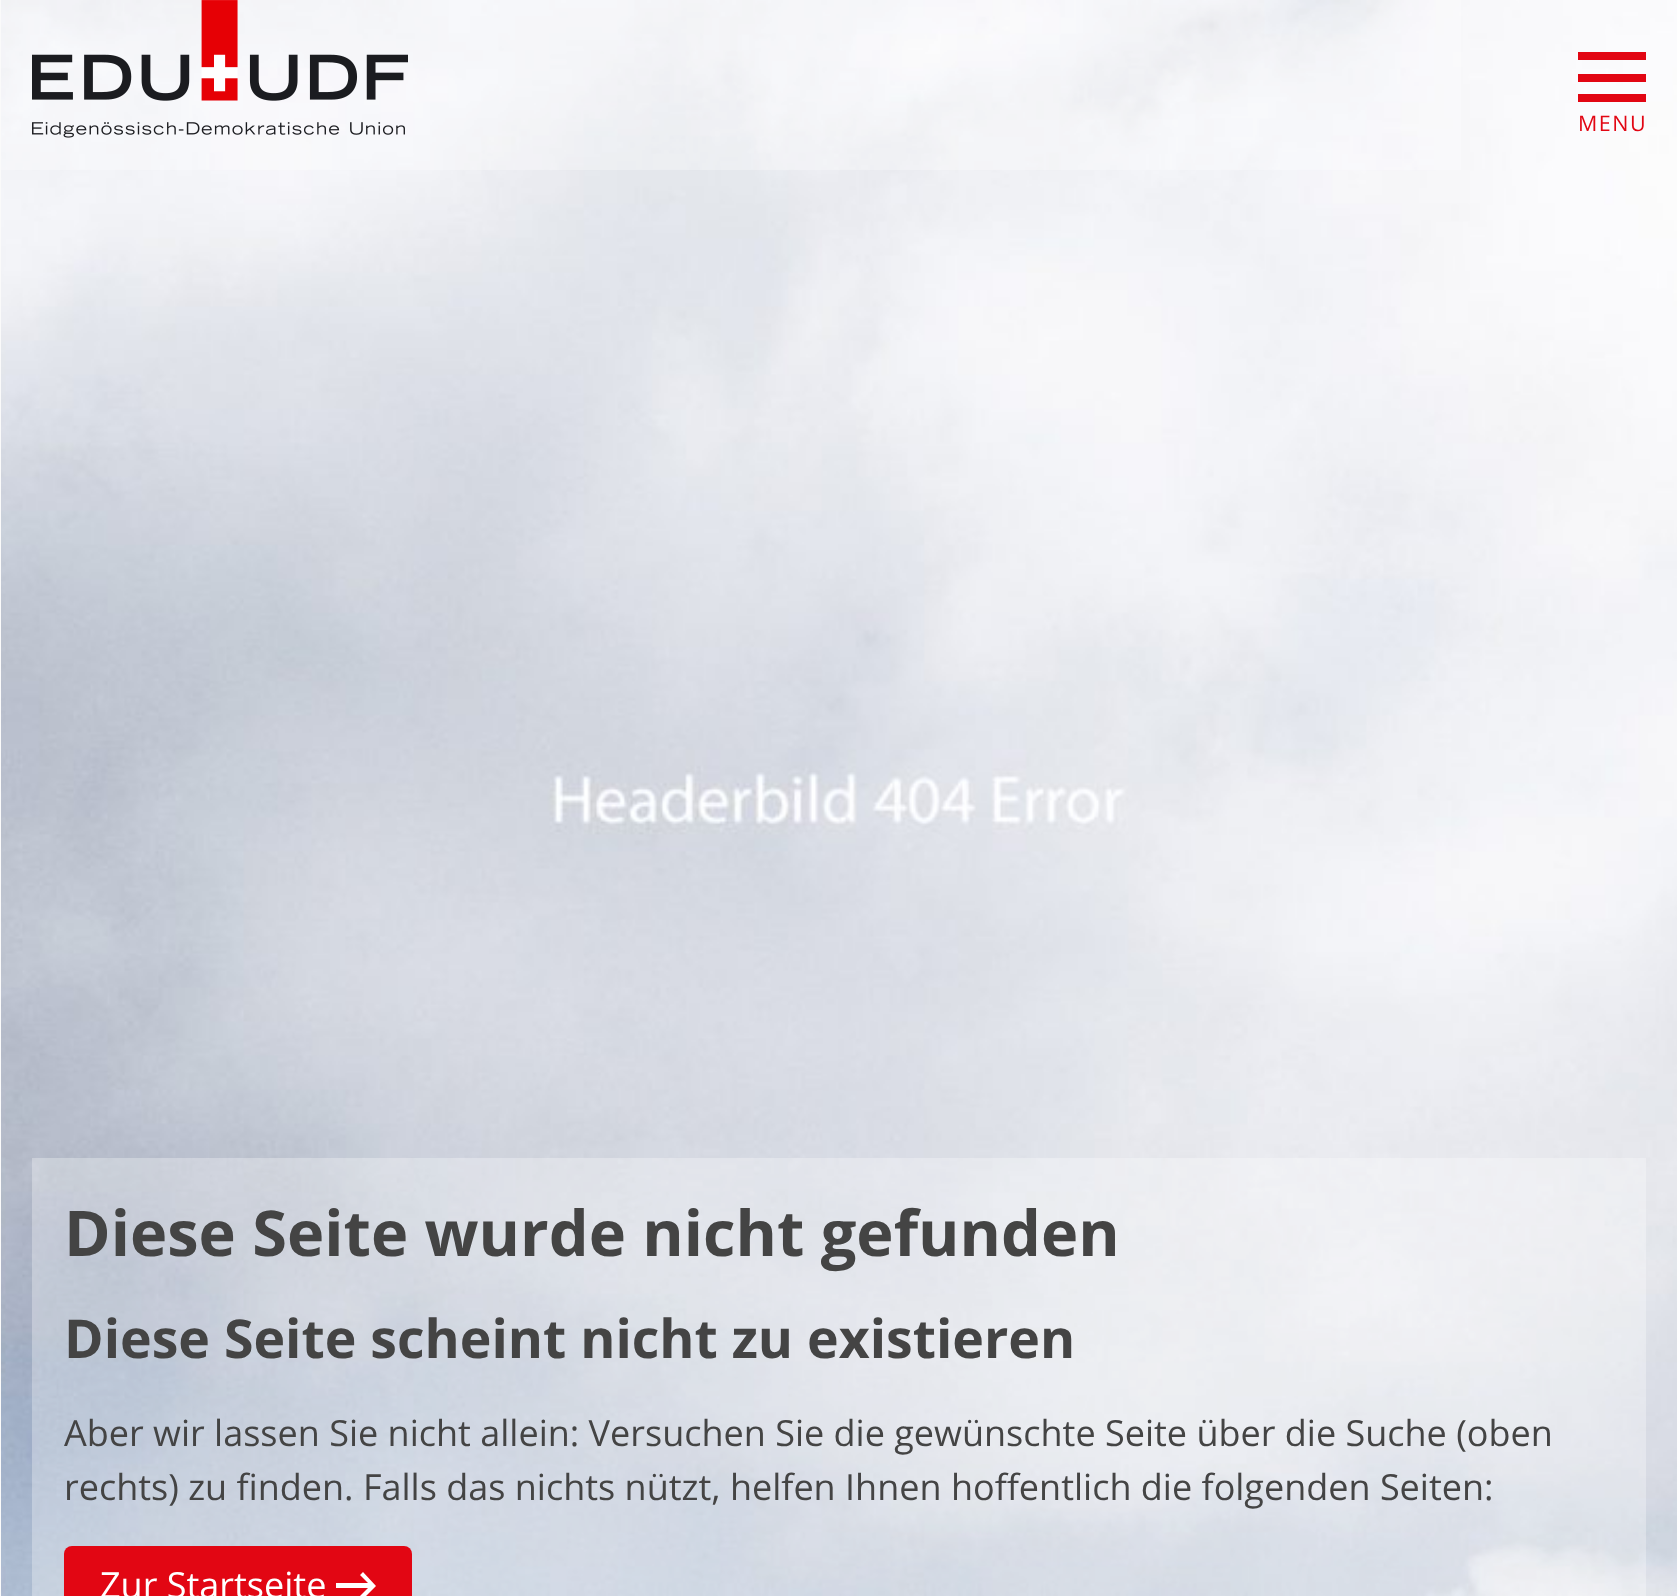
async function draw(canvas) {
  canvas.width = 1677
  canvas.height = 1596
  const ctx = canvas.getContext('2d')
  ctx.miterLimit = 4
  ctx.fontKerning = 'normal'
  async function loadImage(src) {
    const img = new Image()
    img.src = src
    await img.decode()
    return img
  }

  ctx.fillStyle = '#fafafa'
  ctx.fillRect(0, 0, 1677, 1596)
  ctx.drawImage(await loadImage('image0.png'), 1, 0, 1676, 1596)
  ctx.fillStyle = '#ffffff4d'
  ctx.fillRect(1, 0, 1460, 170)
  ctx.drawImage(await loadImage('image1.png'), 32, 0, 376, 138)
  ctx.fillStyle = '#e20613'
  ctx.fillRect(1578, 52, 68, 8)
  ctx.fillRect(1578, 74, 68, 8)
  ctx.fillRect(1578, 94, 68, 8)
  ctx.letterSpacing = '1.5px'
  ctx.font = '21.5px Open Sans'
  ctx.fillText('MENU', 1578, 131)
  ctx.fillStyle = '#ffffff4d'
  ctx.fillRect(32, 1158, 1614, 438)
  ctx.letterSpacing = '0px'
  ctx.font = 'bold 63.1px Open Sans'
  ctx.fillStyle = '#444'
  ctx.fillText('Diese Seite wurde nicht gefunden', 64, 1256)
  ctx.font = 'bold 53.6px Open Sans'
  ctx.fillText('Diese Seite scheint nicht zu existieren', 64, 1358)
  ctx.font = '36px Open Sans'
  ctx.fillText('Aber wir lassen Sie nicht allein: Versuchen Sie die gewünschte Seite über die Suche (oben', 64, 1446)
  ctx.fillText('rechts) zu finden. Falls das nichts nützt, helfen Ihnen hoffentlich die folgenden Seiten:', 64, 1500)
  ctx.fillStyle = '#e20613'
  ctx.beginPath()
  ctx.roundRect(64, 1546, 348, 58, 8)
  ctx.fill()
  ctx.fillStyle = '#fff'
  ctx.fillText('Zur Startseite', 100, 1598)
  ctx.beginPath()
  ctx.moveTo(336, 1588)
  ctx.lineTo(368, 1588)
  ctx.lineTo(360, 1596)
  ctx.lineTo(363, 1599)
  ctx.lineTo(376, 1586)
  ctx.lineTo(363, 1572)
  ctx.lineTo(360, 1575)
  ctx.lineTo(368, 1583)
  ctx.lineTo(336, 1583)
  ctx.closePath()
  ctx.fill()
}

draw(document.querySelector('canvas'))
